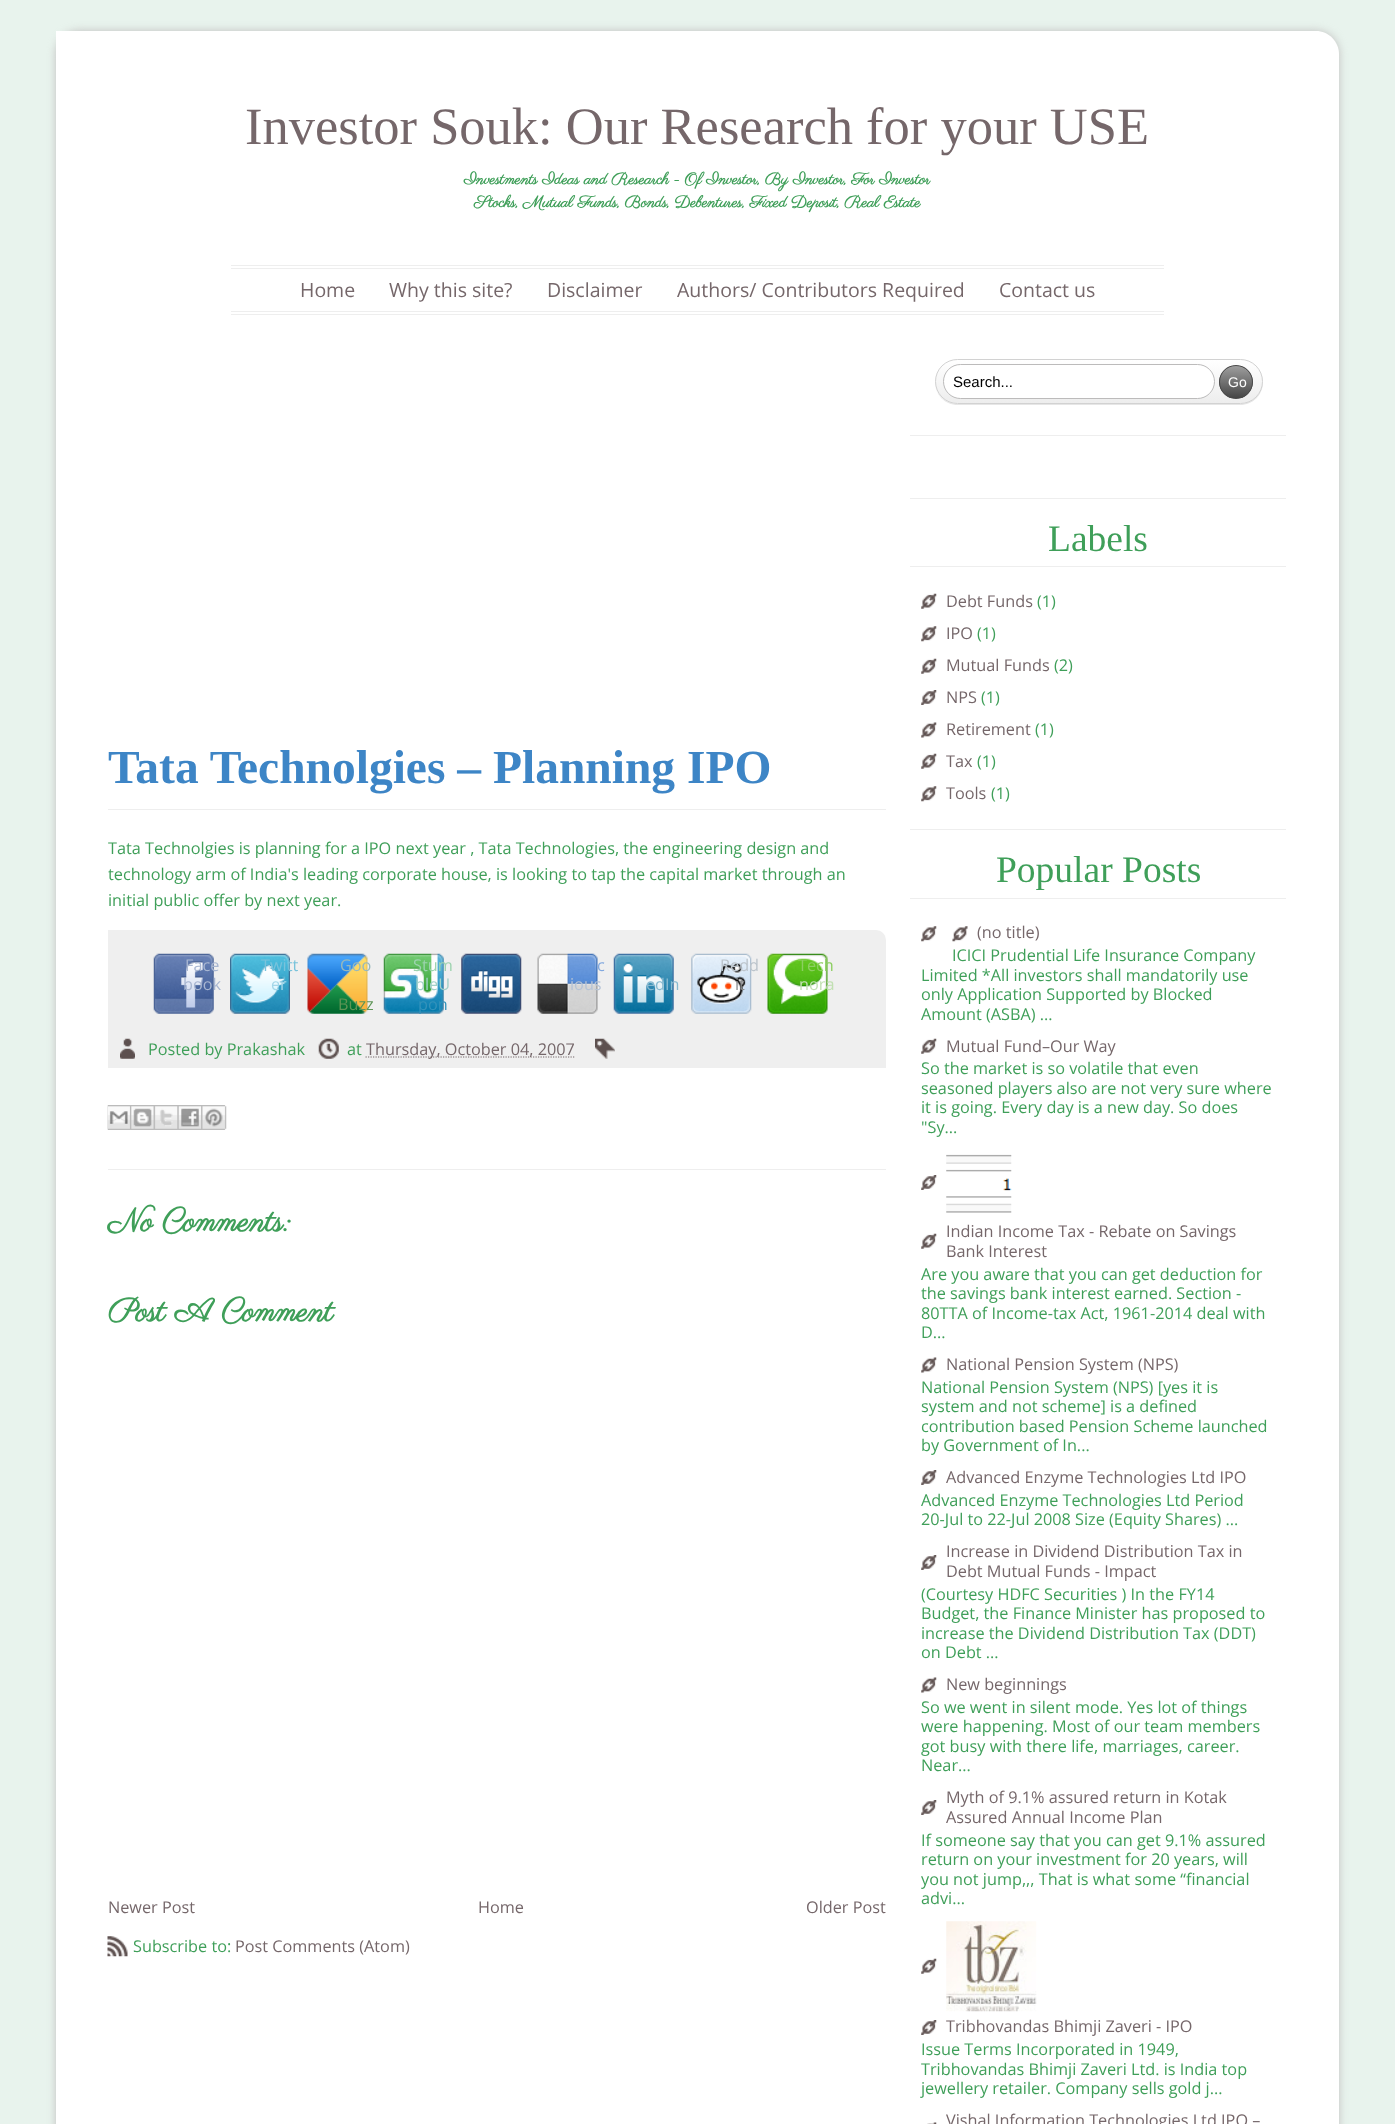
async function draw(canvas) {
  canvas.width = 1395
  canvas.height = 2124
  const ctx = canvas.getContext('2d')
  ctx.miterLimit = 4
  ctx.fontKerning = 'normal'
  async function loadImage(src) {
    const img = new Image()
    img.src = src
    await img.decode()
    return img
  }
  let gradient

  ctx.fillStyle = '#e8f3ed'
  ctx.fillRect(0, 0, 1395, 2124)
  ctx.fillStyle = '#c1bfbf'
  ctx.filter = 'blur(4px)'
  ctx.beginPath()
  ctx.roundRect(56, 31, 1283, 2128, 23)
  ctx.fill()
  ctx.filter = 'none'
  ctx.fillStyle = '#fff'
  ctx.beginPath()
  ctx.moveTo(56, 31)
  ctx.lineTo(1316, 31)
  ctx.bezierCurveTo(1328.5, 31, 1339, 41.5, 1339, 54)
  ctx.lineTo(1339, 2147)
  ctx.lineTo(56, 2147)
  ctx.closePath()
  ctx.fill()
  ctx.font = '52.5px Liberation Serif'
  ctx.fillStyle = '#75676a'
  ctx.fillText('Investor Souk: Our Research for your USE', 245, 144)
  ctx.font = 'bold 16.25px Parisienne'
  ctx.fillStyle = '#3f9f59'
  ctx.fillText('Investments Ideas and Research - Of Investor, By Investor, For Investor', 464, 184)
  ctx.fillText('Stocks, Mutual Funds, Bonds, Debentures, Fixed Deposit, Real Estate', 474, 207)
  ctx.fillStyle = '#eee'
  ctx.fillRect(231, 265, 933, 1)
  ctx.fillRect(231, 268, 933, 1)
  ctx.fillRect(231, 311, 933, 1)
  ctx.fillRect(231, 314, 933, 1)
  ctx.font = '19.5px Open Sans'
  ctx.fillStyle = '#75676a'
  ctx.fillText('Home', 300, 297)
  ctx.fillText('Why this site?', 389, 297)
  ctx.fillText('Disclaimer', 547, 297)
  ctx.fillText('Authors/ Contributors Required', 677, 297)
  ctx.fillText('Contact us', 999, 297)
  ctx.fillStyle = '#eee'
  ctx.fillRect(108, 809, 778, 1)
  ctx.font = 'bold 47.5px Liberation Serif'
  ctx.fillStyle = '#3d85c6'
  ctx.fillText('Tata Technolgies – Planning IPO', 108, 783)
  ctx.font = '16.25px Open Sans'
  ctx.fillStyle = '#3f9f59'
  ctx.fillText('Tata Technolgies is planning for a IPO next year , Tata Technologies, the engineering design and', 108, 854)
  ctx.fillText('technology arm of India\'s leading corporate house, is looking to tap the capital market through an', 108, 880)
  ctx.fillText('initial public offer by next year.', 108, 906)
  ctx.fillStyle = '#efefef'
  ctx.beginPath()
  ctx.roundRect(108, 930, 778, 138, [0, 10, 0, 0])
  ctx.fill()
  ctx.drawImage(await loadImage('image0.png'), 153, 953, 61, 61)
  ctx.fillStyle = '#a8b6d1'
  ctx.fillText('Face', 185, 971)
  ctx.fillText('book', 183, 990)
  ctx.drawImage(await loadImage('image1.png'), 230, 953, 60, 61)
  ctx.fillStyle = '#79c3db'
  ctx.fillText('Twitt', 261, 971)
  ctx.fillStyle = '#a4d7e9'
  ctx.fillText('er', 271, 990)
  ctx.drawImage(await loadImage('image2.png'), 307, 953, 61, 61)
  ctx.fillStyle = '#97b8bc'
  ctx.fillText('Goo', 340, 971)
  ctx.fillStyle = '#5e9556'
  ctx.fillText('Buzz', 338, 1010)
  ctx.drawImage(await loadImage('image3.png'), 383, 953, 61, 61)
  ctx.fillStyle = '#9dd3af'
  ctx.fillText('Stum', 413, 971)
  ctx.fillStyle = '#a2d1c9'
  ctx.fillText('bleU', 415, 990)
  ctx.fillStyle = '#3392bb'
  ctx.fillText('pon', 418, 1010)
  ctx.drawImage(await loadImage('image4.png'), 461, 953, 61, 61)
  ctx.drawImage(await loadImage('image5.png'), 537, 953, 61, 61)
  ctx.fillStyle = '#81a8df'
  ctx.fillText('c', 597, 971)
  ctx.fillStyle = '#b5c3d6'
  ctx.fillText('ious', 570, 990)
  ctx.drawImage(await loadImage('image6.png'), 613, 953, 61, 61)
  ctx.fillStyle = '#86b9d0'
  ctx.fillText('edIn', 646, 990)
  ctx.drawImage(await loadImage('image7.png'), 691, 953, 61, 61)
  ctx.fillStyle = '#bcc4cb'
  ctx.fillText('Redd', 720, 971)
  ctx.fillStyle = '#8b8d8f'
  ctx.fillText('it', 735, 990)
  ctx.drawImage(await loadImage('image8.png'), 767, 953, 61, 61)
  ctx.fillStyle = '#8ccf60'
  ctx.fillText('Tech', 798, 971)
  ctx.fillStyle = '#c1e0b2'
  ctx.fillText('nora', 799, 990)
  ctx.drawImage(await loadImage('image9.png'), 120, 1038, 15, 21)
  ctx.fillStyle = '#3f9f59'
  ctx.fillText('Posted by Prakashak', 148, 1055)
  ctx.drawImage(await loadImage('image10.png'), 318, 1038, 21, 21)
  ctx.fillText('at', 347, 1055)
  ctx.beginPath()
  ctx.moveTo(365.5, 1057)
  ctx.lineTo(574.5, 1057)
  ctx.strokeStyle = '#75676a'
  ctx.lineWidth = 1.2
  ctx.setLineDash([1.25, 1.25])
  ctx.stroke()
  ctx.fillStyle = '#75676a'
  ctx.fillText('Thursday, October 04, 2007', 366, 1055)
  ctx.drawImage(await loadImage('image11.png'), 595, 1038, 20, 21)
  ctx.drawImage(await loadImage('image12.png'), 107, 1105, 23, 25)
  ctx.drawImage(await loadImage('image13.png'), 130, 1105, 24, 25)
  ctx.drawImage(await loadImage('image14.png'), 153, 1105, 25, 25)
  ctx.drawImage(await loadImage('image15.png'), 177, 1105, 25, 25)
  ctx.drawImage(await loadImage('image16.png'), 201, 1105, 26, 25)
  ctx.fillStyle = '#eee'
  ctx.fillRect(108, 1169, 778, 1)
  ctx.font = 'bold 32.5px Parisienne'
  ctx.fillStyle = '#3f9f59'
  ctx.fillText('No Comments:', 108, 1231)
  ctx.fillText('Post A Comment', 108, 1321)
  ctx.font = '16.25px Open Sans'
  ctx.fillStyle = '#75676a'
  ctx.fillText('Newer Post', 108, 1913)
  ctx.fillText('Home', 478, 1913)
  ctx.fillText('Older Post', 806, 1913)
  ctx.drawImage(await loadImage('image17.png'), 107, 1936, 21, 21)
  ctx.fillStyle = '#3f9f59'
  ctx.fillText('Subscribe to:', 133, 1952)
  ctx.fillStyle = '#75676a'
  ctx.fillText('Post Comments (Atom)', 235, 1952)
  ctx.fillStyle = '#eee'
  ctx.fillRect(910, 435, 376, 1)
  ctx.fillStyle = '#e6e6e6'
  ctx.beginPath()
  ctx.moveTo(935, 382)
  ctx.bezierCurveTo(935, 395, 945, 405, 958, 405)
  ctx.lineTo(1240, 405)
  ctx.bezierCurveTo(1253, 405, 1263, 395, 1263, 382)
  ctx.bezierCurveTo(1263, 379, 1262, 376, 1261, 374)
  ctx.bezierCurveTo(1262, 376, 1262, 379, 1262, 381)
  ctx.bezierCurveTo(1262, 394, 1252, 404, 1240, 404)
  ctx.lineTo(958, 404)
  ctx.bezierCurveTo(945, 404, 935, 394, 935, 382)
  ctx.closePath()
  ctx.fill()
  ctx.save()
  ctx.beginPath()
  ctx.roundRect(935, 359, 328, 45, 22.5)
  ctx.clip()
  gradient = ctx.createLinearGradient(936, 360, 936, 403)
  gradient.addColorStop(0, '#fff')
  gradient.addColorStop(1, '#ededed')
  ctx.fillStyle = gradient
  ctx.fillRect(935, 360, 328, 43)
  ctx.restore()
  ctx.beginPath()
  ctx.roundRect(935.5, 359.5, 327, 44, 22)
  ctx.strokeStyle = '#d2d2d2'
  ctx.lineWidth = 1
  ctx.setLineDash([])
  ctx.stroke()
  ctx.fillStyle = '#fff'
  ctx.beginPath()
  ctx.roundRect(943.5, 364.5, 271, 34, 17)
  ctx.fill()
  ctx.strokeStyle = '#bcbbbb'
  ctx.stroke()
  ctx.font = '15px Liberation Sans'
  ctx.fillStyle = '#000'
  ctx.fillText('Search...', 953, 387)
  ctx.save()
  ctx.beginPath()
  ctx.roundRect(1219, 365, 34, 34, 17)
  ctx.clip()
  gradient = ctx.createLinearGradient(1220, 366, 1220, 398)
  gradient.addColorStop(0, '#9e9e9e')
  gradient.addColorStop(1, '#454545')
  ctx.fillStyle = gradient
  ctx.fillRect(1219, 366, 34, 32)
  ctx.restore()
  ctx.beginPath()
  ctx.arc(1236, 382, 16.5, 0, 2 * Math.PI)
  ctx.strokeStyle = '#494949'
  ctx.stroke()
  ctx.font = '14px Liberation Sans'
  ctx.fillStyle = '#fff'
  ctx.fillText('Go', 1228, 387)
  ctx.fillStyle = '#eee'
  ctx.fillRect(910, 498, 376, 1)
  ctx.fillRect(910, 829, 376, 1)
  ctx.fillRect(910, 566, 376, 1)
  ctx.font = '37.5px Liberation Serif'
  ctx.fillStyle = '#3f9f59'
  ctx.fillText('Labels', 1048, 551)
  ctx.drawImage(await loadImage('image18.png'), 921, 593, 16, 16)
  ctx.font = '16.25px Open Sans'
  ctx.fillStyle = '#75676a'
  ctx.fillText('Debt Funds', 946, 607)
  ctx.fillStyle = '#3f9f59'
  ctx.fillText('(1)', 1037, 607)
  ctx.drawImage(await loadImage('image19.png'), 921, 626, 16, 16)
  ctx.fillStyle = '#75676a'
  ctx.fillText('IPO', 946, 639)
  ctx.fillStyle = '#3f9f59'
  ctx.fillText('(1)', 977, 639)
  ctx.drawImage(await loadImage('image18.png'), 921, 658, 16, 16)
  ctx.fillStyle = '#75676a'
  ctx.fillText('Mutual Funds', 946, 671)
  ctx.fillStyle = '#3f9f59'
  ctx.fillText('(2)', 1054, 671)
  ctx.drawImage(await loadImage('image20.png'), 921, 690, 16, 15)
  ctx.fillStyle = '#75676a'
  ctx.fillText('NPS', 946, 703)
  ctx.fillStyle = '#3f9f59'
  ctx.fillText('(1)', 981, 703)
  ctx.drawImage(await loadImage('image21.png'), 921, 722, 16, 16)
  ctx.fillStyle = '#75676a'
  ctx.fillText('Retirement', 946, 735)
  ctx.fillStyle = '#3f9f59'
  ctx.fillText('(1)', 1035, 735)
  ctx.drawImage(await loadImage('image18.png'), 921, 753, 16, 16)
  ctx.fillStyle = '#75676a'
  ctx.fillText('Tax', 946, 767)
  ctx.fillStyle = '#3f9f59'
  ctx.fillText('(1)', 977, 767)
  ctx.drawImage(await loadImage('image19.png'), 921, 786, 16, 16)
  ctx.fillStyle = '#75676a'
  ctx.fillText('Tools', 946, 799)
  ctx.fillStyle = '#3f9f59'
  ctx.fillText('(1)', 991, 799)
  ctx.fillStyle = '#eee'
  ctx.fillRect(910, 898, 376, 1)
  ctx.font = '37.5px Liberation Serif'
  ctx.fillStyle = '#3f9f59'
  ctx.fillText('Popular Posts', 996, 882)
  ctx.drawImage(await loadImage('image19.png'), 921, 926, 16, 16)
  ctx.drawImage(await loadImage('image22.png'), 952, 926, 16, 16)
  ctx.font = '16.25px Open Sans'
  ctx.fillStyle = '#75676a'
  ctx.fillText('(no title)', 977, 938)
  ctx.fillStyle = '#3f9f59'
  ctx.fillText('ICICI Prudential Life Insurance Company', 952, 961)
  ctx.fillText('Limited *All investors shall mandatorily use', 921, 981)
  ctx.fillText('only Application Supported by Blocked', 921, 1000)
  ctx.fillText('Amount (ASBA) ...', 921, 1020)
  ctx.drawImage(await loadImage('image18.png'), 921, 1038, 16, 16)
  ctx.fillStyle = '#75676a'
  ctx.fillText('Mutual Fund–Our Way', 946, 1052)
  ctx.fillStyle = '#3f9f59'
  ctx.fillText('So the market is so volatile that even', 921, 1074)
  ctx.fillText('seasoned players also are not very sure where', 921, 1094)
  ctx.fillText('it is going. Every day is a new day. So does', 921, 1113)
  ctx.fillText('"Sy...', 921, 1133)
  ctx.drawImage(await loadImage('image23.png'), 921, 1175, 16, 15)
  ctx.drawImage(await loadImage('image24.png'), 946, 1154, 66, 59)
  ctx.drawImage(await loadImage('image18.png'), 921, 1233, 16, 16)
  ctx.fillStyle = '#75676a'
  ctx.fillText('Indian Income Tax - Rebate on Savings', 946, 1237)
  ctx.fillText('Bank Interest', 946, 1257)
  ctx.fillStyle = '#3f9f59'
  ctx.fillText('Are you aware that you can get deduction for', 921, 1280)
  ctx.fillText('the savings bank interest earned. Section -', 921, 1299)
  ctx.fillText('80TTA of Income-tax Act, 1961-2014 deal with', 921, 1319)
  ctx.fillText('D...', 921, 1338)
  ctx.drawImage(await loadImage('image21.png'), 921, 1357, 16, 16)
  ctx.fillStyle = '#75676a'
  ctx.fillText('National Pension System (NPS)', 946, 1370)
  ctx.fillStyle = '#3f9f59'
  ctx.fillText('National Pension System (NPS) [yes it is', 921, 1393)
  ctx.fillText('system and not scheme] is a defined', 921, 1412)
  ctx.fillText('contribution based Pension Scheme launched', 921, 1432)
  ctx.fillText('by Government of In...', 921, 1451)
  ctx.drawImage(await loadImage('image20.png'), 921, 1470, 16, 15)
  ctx.fillStyle = '#75676a'
  ctx.fillText('Advanced Enzyme Technologies Ltd IPO', 946, 1483)
  ctx.fillStyle = '#3f9f59'
  ctx.fillText('Advanced Enzyme Technologies Ltd Period', 921, 1506)
  ctx.fillText('20-Jul to 22-Jul 2008 Size (Equity Shares) ...', 921, 1525)
  ctx.drawImage(await loadImage('image25.png'), 921, 1555, 16, 15)
  ctx.fillStyle = '#75676a'
  ctx.fillText('Increase in Dividend Distribution Tax in', 946, 1557)
  ctx.fillText('Debt Mutual Funds - Impact', 946, 1577)
  ctx.fillStyle = '#3f9f59'
  ctx.fillText('(Courtesy HDFC Securities ) In the FY14', 921, 1600)
  ctx.fillText('Budget, the Finance Minister has proposed to', 921, 1619)
  ctx.fillText('increase the Dividend Distribution Tax (DDT)', 921, 1639)
  ctx.fillText('on Debt ...', 921, 1658)
  ctx.drawImage(await loadImage('image21.png'), 921, 1677, 16, 16)
  ctx.fillStyle = '#75676a'
  ctx.fillText('New beginnings', 946, 1690)
  ctx.fillStyle = '#3f9f59'
  ctx.fillText('So we went in silent mode. Yes lot of things', 921, 1713)
  ctx.fillText('were happening. Most of our team members', 921, 1732)
  ctx.fillText('got busy with there life, marriages, career.', 921, 1752)
  ctx.fillText('Near...', 921, 1771)
  ctx.drawImage(await loadImage('image20.png'), 921, 1800, 16, 15)
  ctx.fillStyle = '#75676a'
  ctx.fillText('Myth of 9.1% assured return in Kotak', 946, 1803)
  ctx.fillText('Assured Annual Income Plan', 946, 1823)
  ctx.fillStyle = '#3f9f59'
  ctx.fillText('If someone say that you can get 9.1% assured', 921, 1846)
  ctx.fillText('return on your investment for 20 years, will', 921, 1865)
  ctx.fillText('you not jump,,, That is what some “financial', 921, 1885)
  ctx.fillText('advi...', 921, 1904)
  ctx.drawImage(await loadImage('image18.png'), 921, 1958, 16, 16)
  ctx.drawImage(await loadImage('image26.png'), 946, 1921, 91, 91)
  ctx.drawImage(await loadImage('image20.png'), 921, 2020, 16, 15)
  ctx.fillStyle = '#75676a'
  ctx.fillText('Tribhovandas Bhimji Zaveri - IPO', 946, 2032)
  ctx.fillStyle = '#3f9f59'
  ctx.fillText('Issue Terms Incorporated in 1949,', 921, 2055)
  ctx.fillText('Tribhovandas Bhimji Zaveri Ltd. is India top', 921, 2075)
  ctx.fillText('jewellery retailer. Company sells gold j...', 921, 2094)
  ctx.drawImage(await loadImage('image27.png'), 927, 2122, 10, 2)
  ctx.fillStyle = '#75676a'
  ctx.fillText('Vishal Information Technologies Ltd IPO –', 946, 2126)
}

draw(document.querySelector('canvas'))
